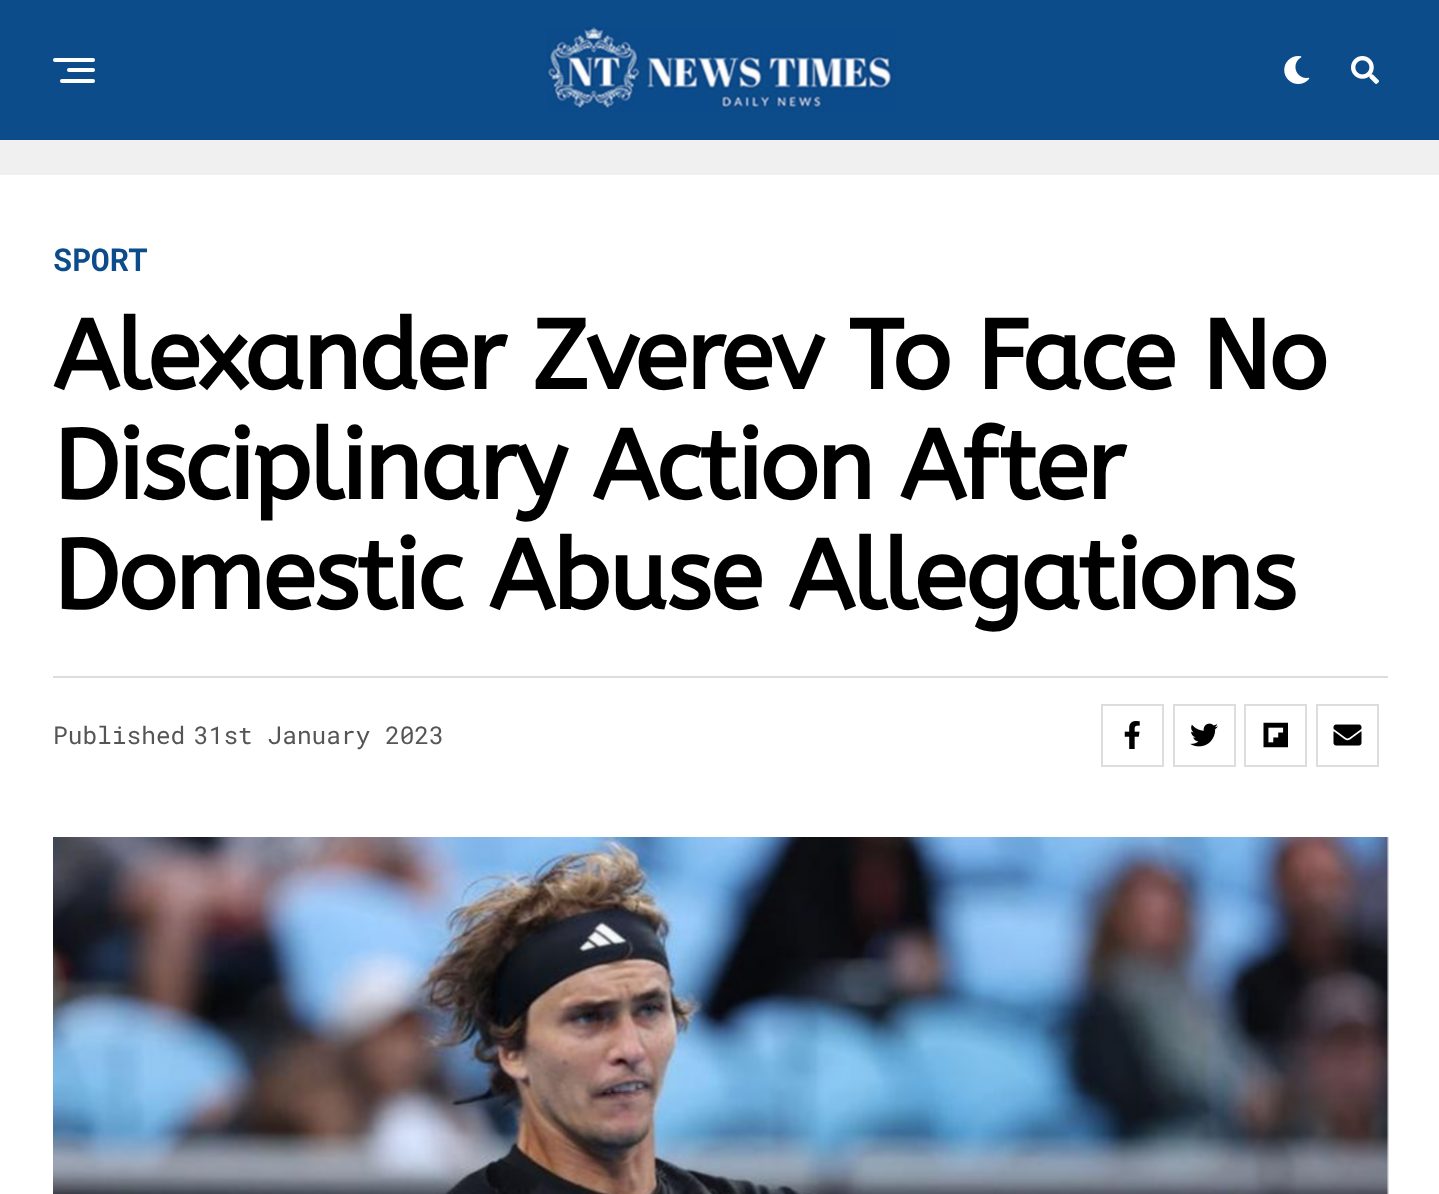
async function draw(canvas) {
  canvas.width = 1439
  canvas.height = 1194
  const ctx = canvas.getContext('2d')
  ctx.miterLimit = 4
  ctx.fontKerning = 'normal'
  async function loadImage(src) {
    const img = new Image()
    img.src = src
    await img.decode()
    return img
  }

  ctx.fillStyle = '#f0f0f0'
  ctx.fillRect(0, 0, 1439, 1194)
  ctx.fillStyle = '#0c4c8a'
  ctx.fillRect(0, 0, 1439, 140)
  ctx.fillStyle = '#fff'
  ctx.beginPath()
  ctx.roundRect(53, 58, 42, 4, 2)
  ctx.fill()
  ctx.beginPath()
  ctx.roundRect(67, 68, 28, 4, 2)
  ctx.fill()
  ctx.beginPath()
  ctx.roundRect(60, 79, 35, 4, 2)
  ctx.fill()
  ctx.drawImage(await loadImage('image0.png'), 546, 27, 350, 85)
  ctx.drawImage(await loadImage('image1.png'), 1284, 56, 26, 28)
  ctx.drawImage(await loadImage('image2.png'), 1351, 56, 28, 28)
  ctx.fillRect(0, 175, 1439, 1019)
  ctx.font = 'bold 31.5px Roboto Mono'
  ctx.fillStyle = '#0c4c8a'
  ctx.fillText('SPORT', 53, 271)
  ctx.letterSpacing = '-1.95px'
  ctx.font = 'bold 98px ABeeZee'
  ctx.fillStyle = '#000'
  ctx.fillText('Alexander Zverev To Face No', 53, 389)
  ctx.fillText('Disciplinary Action After', 53, 499)
  ctx.fillText('Domestic Abuse Allegations', 53, 609)
  ctx.fillStyle = '#ddd'
  ctx.fillRect(53, 676, 1335, 2)
  ctx.letterSpacing = '0px'
  ctx.font = '24.5px Roboto Mono'
  ctx.fillStyle = '#555'
  ctx.fillText('Published', 53, 744)
  ctx.fillText('31st January 2023', 194, 744)
  ctx.strokeStyle = '#ddd'
  ctx.lineWidth = 2
  ctx.strokeRect(1102, 705, 61, 61)
  ctx.drawImage(await loadImage('image3.png'), 1124, 721, 16, 28)
  ctx.strokeRect(1174, 705, 61, 61)
  ctx.drawImage(await loadImage('image4.png'), 1190, 723, 28, 24)
  ctx.strokeRect(1245, 705, 61, 61)
  ctx.drawImage(await loadImage('image5.png'), 1263, 722, 25, 26)
  ctx.strokeRect(1317, 705, 61, 61)
  ctx.drawImage(await loadImage('image6.png'), 1333, 724, 29, 22)
  ctx.drawImage(await loadImage('image7.png'), 53, 837, 1336, 357)
}

draw(document.querySelector('canvas'))
